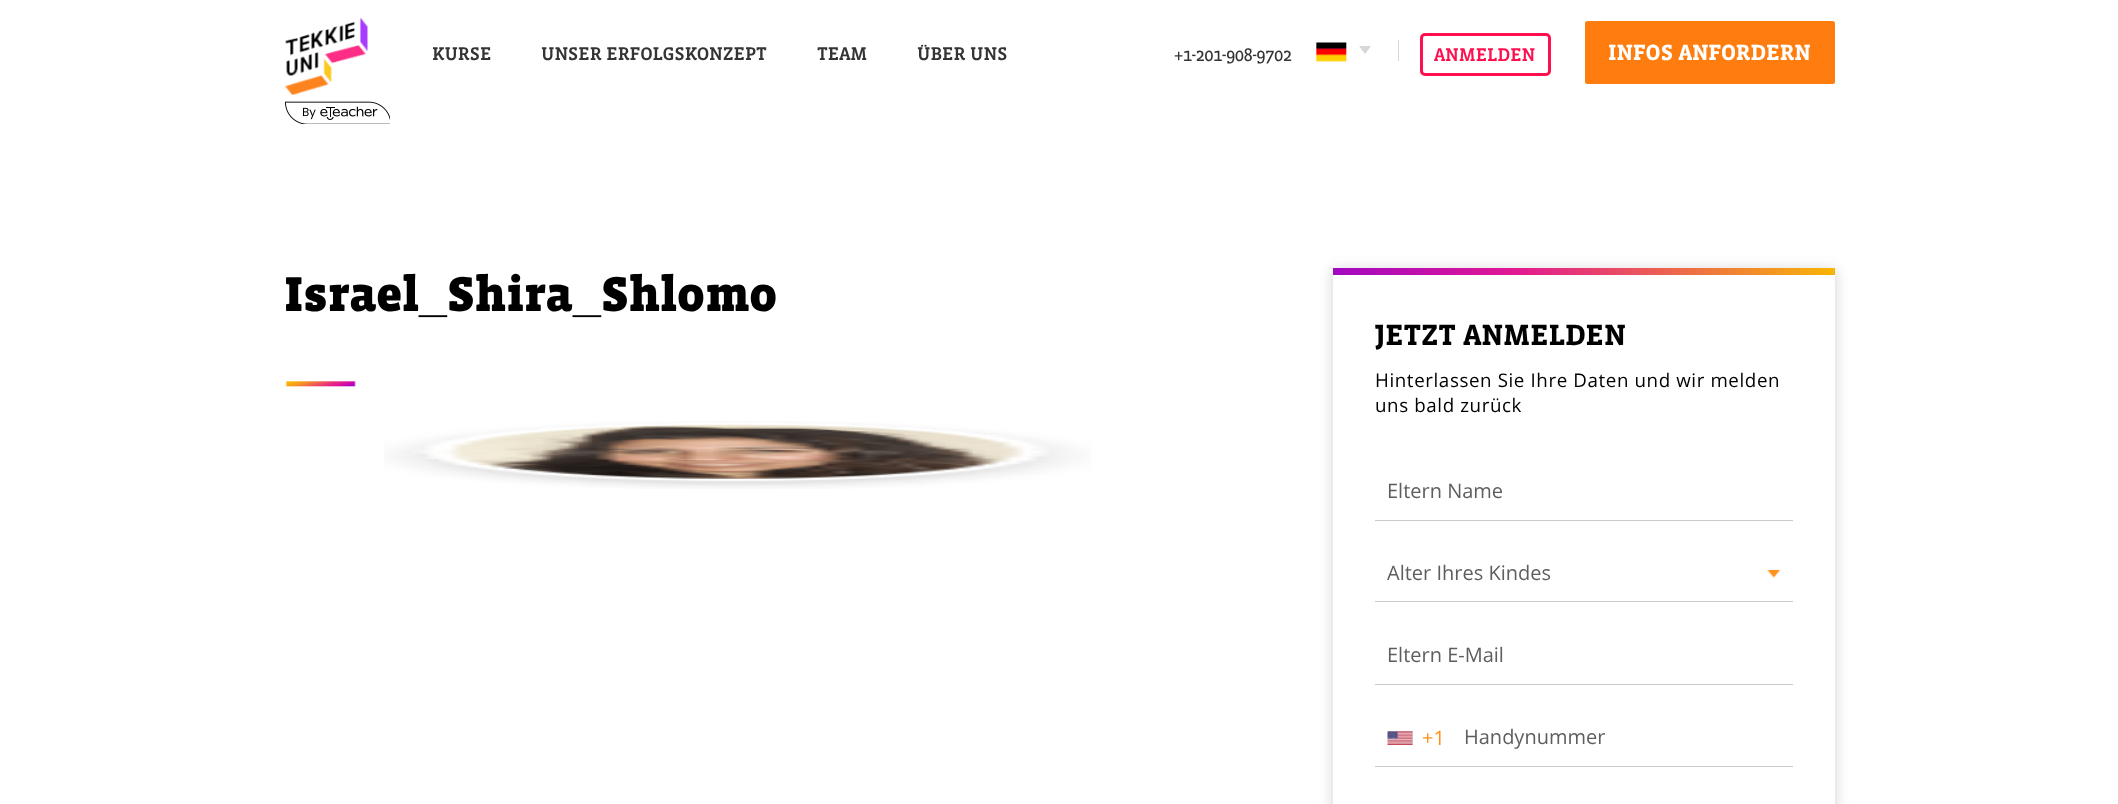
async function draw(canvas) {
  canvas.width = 2118
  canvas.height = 804
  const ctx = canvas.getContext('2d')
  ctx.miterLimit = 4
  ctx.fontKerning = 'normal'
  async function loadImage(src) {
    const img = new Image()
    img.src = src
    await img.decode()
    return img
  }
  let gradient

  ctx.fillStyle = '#fff'
  ctx.fillRect(0, 0, 2118, 804)
  ctx.drawImage(await loadImage('image0.png'), 284, 17, 84, 78)
  ctx.drawImage(await loadImage('image1.png'), 285, 101, 105, 23)
  ctx.font = '500 18.75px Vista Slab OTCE'
  ctx.fillStyle = '#343434'
  ctx.fillText('KURSE', 432, 60)
  ctx.fillText('UNSER ERFOLGSKONZEPT', 541, 60)
  ctx.fillText('TEAM', 817, 60)
  ctx.fillText('ÜBER UNS', 917, 60)
  ctx.letterSpacing = '-0.6px'
  ctx.font = '18.75px Vista Slab OTCE'
  ctx.fillText('+1-201-908-9702', 1174, 61)
  ctx.drawImage(await loadImage('image2.png'), 1316, 42, 31, 20)
  ctx.fillStyle = '#d7d7d7'
  ctx.beginPath()
  ctx.moveTo(1359, 46)
  ctx.lineTo(1371, 46)
  ctx.lineTo(1365, 54)
  ctx.closePath()
  ctx.fill()
  ctx.fillRect(1398, 40, 1, 21)
  ctx.beginPath()
  ctx.roundRect(1421.5, 34.5, 128, 40, 3.5)
  ctx.strokeStyle = '#ff0f4d'
  ctx.lineWidth = 3
  ctx.stroke()
  ctx.letterSpacing = '0px'
  ctx.font = '500 18.75px Vista Slab OTCE'
  ctx.fillStyle = '#ff0f4d'
  ctx.fillText('ANMELDEN', 1434, 61)
  ctx.fillStyle = '#ff7d0e'
  ctx.beginPath()
  ctx.roundRect(1585, 21, 250, 63, 2.5)
  ctx.fill()
  ctx.font = 'bold 22.5px Vista Slab OTCE'
  ctx.fillStyle = '#fff'
  ctx.fillText('INFOS ANFORDERN', 1608, 60)
  ctx.font = '900 50px Vista Slab OTCE'
  ctx.fillStyle = '#000'
  ctx.fillText('Israel', 284, 311)
  ctx.fillText('Shira', 447, 311)
  ctx.fillText('Shlomo', 601, 311)
  ctx.font = 'bold 50px Liberation Sans'
  ctx.fillText('_', 419, 311)
  ctx.fillText('_', 573, 311)
  ctx.drawImage(await loadImage('image3.png'), 285, 381, 71, 6)
  ctx.drawImage(await loadImage('image4.png'), 384, 421, 707, 68)
  ctx.save()
  ctx.beginPath()
  ctx.moveTo(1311, 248)
  ctx.lineTo(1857, 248)
  ctx.lineTo(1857, 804)
  ctx.lineTo(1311, 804)
  ctx.closePath()
  ctx.moveTo(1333, 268)
  ctx.lineTo(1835, 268)
  ctx.lineTo(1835, 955)
  ctx.lineTo(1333, 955)
  ctx.closePath()
  ctx.clip('evenodd')
  ctx.fillStyle = '#0000002e'
  ctx.filter = 'blur(7px)'
  ctx.beginPath()
  ctx.rect(1333, 270, 502, 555)
  ctx.fill()
  ctx.filter = 'none'
  ctx.restore()
  gradient = ctx.createLinearGradient(1766, 157, 1401, 385)
  gradient.addColorStop(0, '#f8b605')
  gradient.addColorStop(0.64, '#e11893')
  gradient.addColorStop(0.82, '#c110ab')
  gradient.addColorStop(1, '#a108c2')
  ctx.fillStyle = gradient
  ctx.fillRect(1333, 268, 502, 7)
  ctx.font = 'bold 30px Vista Slab OTCE'
  ctx.fillStyle = '#000'
  ctx.fillText('JETZT ANMELDEN', 1375, 345)
  ctx.letterSpacing = '0.6px'
  ctx.font = '18.75px Open Sans'
  ctx.fillText('Hinterlassen Sie Ihre Daten und wir melden', 1375, 387)
  ctx.fillText('uns bald zurück', 1375, 412)
  ctx.fillStyle = '#cacaca'
  ctx.fillRect(1375, 520, 418, 1)
  ctx.letterSpacing = '0px'
  ctx.font = '20px Open Sans'
  ctx.fillStyle = '#5e5e5e'
  ctx.fillText('Eltern Name', 1387, 498)
  ctx.fillStyle = '#cacaca'
  ctx.fillRect(1375, 601, 418, 1)
  ctx.drawImage(await loadImage('image5.png'), 1767, 570, 13, 8)
  ctx.fillStyle = '#5e5e5e'
  ctx.fillText('Alter Ihres Kindes', 1387, 580)
  ctx.fillStyle = '#cacaca'
  ctx.fillRect(1375, 684, 418, 1)
  ctx.fillStyle = '#5e5e5e'
  ctx.fillText('Eltern E-Mail', 1387, 662)
  ctx.fillStyle = '#cacaca'
  ctx.fillRect(1375, 766, 418, 1)
  ctx.fillStyle = '#888'
  ctx.filter = 'blur(0.5px)'
  ctx.beginPath()
  ctx.rect(1388, 731, 25, 14)
  ctx.fill()
  ctx.filter = 'none'
  ctx.fillStyle = '#dbdbdb'
  ctx.fillRect(1388, 731, 25, 14)
  ctx.drawImage(await loadImage('image6.png'), 1387, 731, 26, 14)
  ctx.fillStyle = '#ff9019'
  ctx.fillText('+1', 1422, 745)
  ctx.fillStyle = '#5e5e5e'
  ctx.fillText('Handynummer', 1464, 744)
}

draw(document.querySelector('canvas'))
